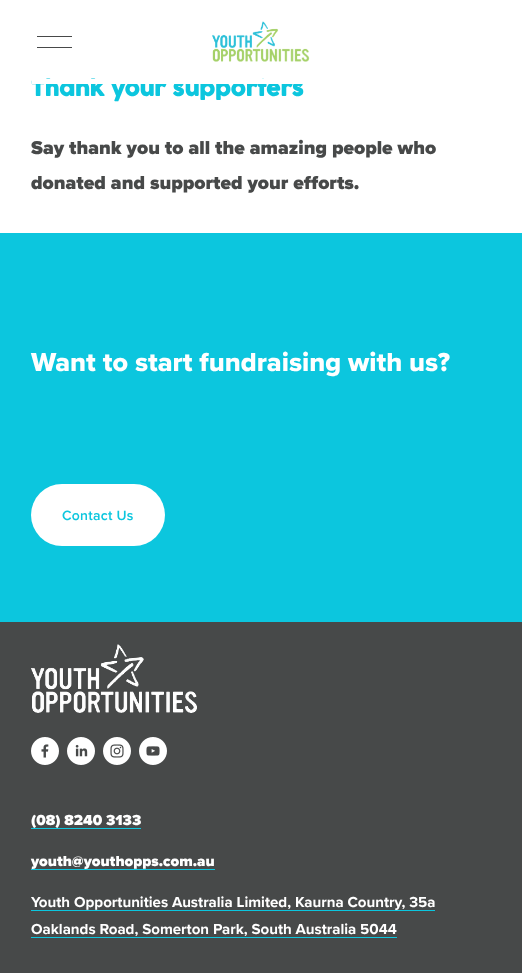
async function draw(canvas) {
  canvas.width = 522
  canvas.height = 973
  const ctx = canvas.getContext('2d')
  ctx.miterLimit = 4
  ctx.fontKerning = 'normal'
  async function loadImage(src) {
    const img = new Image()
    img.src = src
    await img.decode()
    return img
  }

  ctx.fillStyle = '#fff'
  ctx.fillRect(0, 0, 522, 973)
  ctx.fillStyle = '#474949'
  ctx.fillRect(37, 36, 35, 1)
  ctx.fillRect(37, 47, 35, 1)
  ctx.drawImage(await loadImage('image0.png'), 212, 21, 98, 41)
  ctx.font = 'bold 20.5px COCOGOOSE'
  ctx.fillStyle = '#0cc6de'
  ctx.fillText('Thank your supporters', 31, 96)
  ctx.fillStyle = '#fff'
  ctx.fillRect(32, 79, 270, 5)
  ctx.font = '900 19.4px Proxima Nova'
  ctx.fillStyle = '#474949'
  ctx.fillText('Say thank you to all the amazing people who', 31, 154)
  ctx.fillText('donated and supported your efforts.', 31, 189)
  ctx.fillStyle = '#0cc6de'
  ctx.fillRect(0, 233, 522, 389)
  ctx.font = '800 27px Proxima Nova'
  ctx.fillStyle = '#fff'
  ctx.fillText('Want to start fundraising with us?', 31, 371)
  ctx.beginPath()
  ctx.roundRect(31, 484, 134, 62, 31)
  ctx.fill()
  ctx.letterSpacing = '0.25px'
  ctx.font = '600 14px Proxima Nova'
  ctx.fillStyle = '#0cc6de'
  ctx.fillText('Contact Us', 62, 520)
  ctx.fillStyle = '#474949'
  ctx.fillRect(0, 622, 522, 351)
  ctx.drawImage(await loadImage('image1.png'), 31, 644, 166, 69)
  ctx.drawImage(await loadImage('image2.png'), 31, 737, 28, 28)
  ctx.drawImage(await loadImage('image3.png'), 67, 737, 28, 28)
  ctx.drawImage(await loadImage('image4.png'), 103, 737, 28, 28)
  ctx.drawImage(await loadImage('image5.png'), 139, 737, 28, 28)
  ctx.letterSpacing = '0px'
  ctx.font = '900 15.1px Proxima Nova'
  ctx.fillStyle = '#fff'
  ctx.fillText('(08) 8240 3133', 31, 825)
  ctx.fillStyle = '#0cc6de'
  ctx.fillRect(31, 828, 110, 1)
  ctx.fillStyle = '#fff'
  ctx.fillText('youth@youthopps.com.au', 31, 866)
  ctx.fillStyle = '#0cc6de'
  ctx.fillRect(31, 869, 184, 1)
  ctx.font = 'bold 15.1px Proxima Nova'
  ctx.fillStyle = '#fff'
  ctx.fillText('Youth Opportunities Australia Limited, Kaurna Country, 35a', 31, 907)
  ctx.fillStyle = '#0cc6de'
  ctx.fillRect(31, 910, 404, 1)
  ctx.fillStyle = '#fff'
  ctx.fillText('Oaklands Road, Somerton Park, South Australia 5044', 31, 934)
  ctx.fillStyle = '#0cc6de'
  ctx.fillRect(31, 937, 366, 1)
}

draw(document.querySelector('canvas'))
